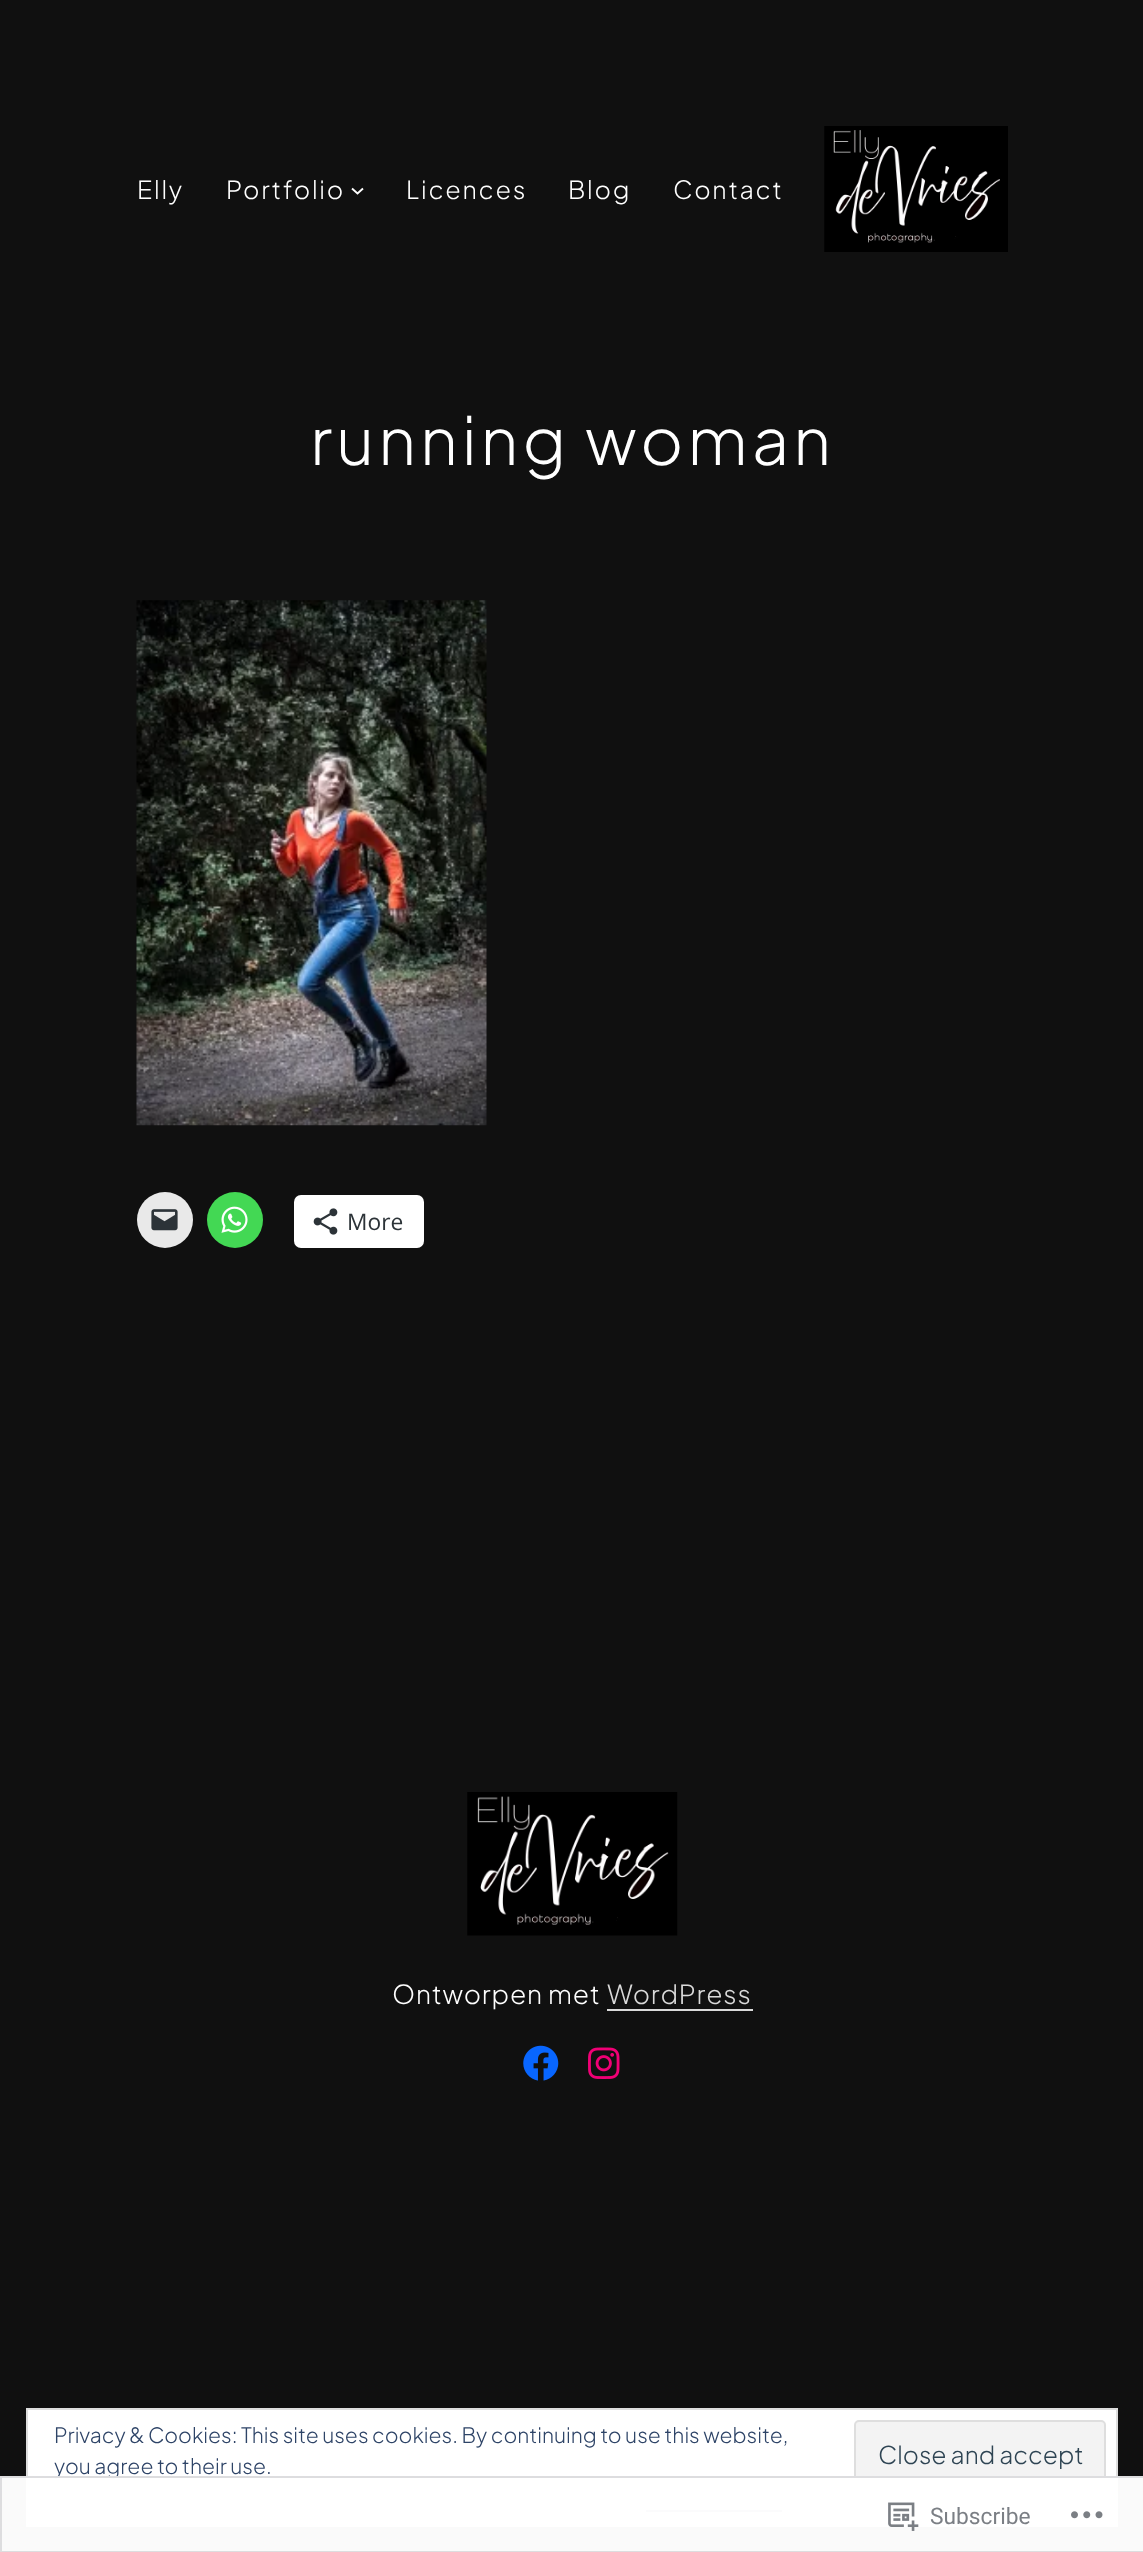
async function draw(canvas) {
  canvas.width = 1143
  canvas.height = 2552
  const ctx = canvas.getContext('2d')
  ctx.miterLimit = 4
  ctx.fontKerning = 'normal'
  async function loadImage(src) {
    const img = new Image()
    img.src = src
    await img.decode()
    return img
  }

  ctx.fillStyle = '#101010'
  ctx.fillRect(0, 0, 1143, 2552)
  ctx.letterSpacing = '1.75px'
  ctx.font = '300 25px Plus Jakarta Sans'
  ctx.fillStyle = '#fff'
  ctx.fillText('Elly', 137, 199)
  ctx.fillText('Portfolio', 226, 199)
  ctx.beginPath()
  ctx.moveTo(352, 188.5)
  ctx.lineTo(357.5, 193.5)
  ctx.lineTo(363, 188.5)
  ctx.strokeStyle = '#fff'
  ctx.lineWidth = 1.9
  ctx.stroke()
  ctx.fillText('Licences', 406, 199)
  ctx.fillText('Blog', 568, 199)
  ctx.fillText('Contact', 673, 199)
  ctx.drawImage(await loadImage('image0.png'), 824, 126, 184, 126)
  ctx.letterSpacing = '4px'
  ctx.font = '300 66px Plus Jakarta Sans'
  ctx.fillText('running woman', 310, 465)
  ctx.drawImage(await loadImage('image1.png'), 136, 600, 351, 526)
  ctx.fillStyle = '#e9e9e9'
  ctx.beginPath()
  ctx.arc(165, 1220, 28, 0, 2 * Math.PI)
  ctx.fill()
  ctx.drawImage(await loadImage('image2.png'), 151, 1209, 27, 22)
  ctx.fillStyle = '#43d854'
  ctx.beginPath()
  ctx.arc(235, 1220, 28, 0, 2 * Math.PI)
  ctx.fill()
  ctx.drawImage(await loadImage('image3.png'), 221, 1206, 27, 27)
  ctx.fillStyle = '#fff'
  ctx.beginPath()
  ctx.roundRect(294, 1195, 130, 53, 7)
  ctx.fill()
  ctx.drawImage(await loadImage('image4.png'), 313, 1208, 25, 27)
  ctx.letterSpacing = '0px'
  ctx.font = '22.75px Open Sans'
  ctx.fillStyle = '#2c3338'
  ctx.fillText('More', 347, 1230)
  ctx.drawImage(await loadImage('image5.png'), 467, 1792, 211, 144)
  ctx.letterSpacing = '0.8px'
  ctx.font = '300 26.25px Plus Jakarta Sans'
  ctx.fillStyle = '#fff'
  ctx.fillText('Ontworpen met', 392, 2004)
  ctx.fillStyle = '#dadada'
  ctx.fillText('WordPress', 607, 2004)
  ctx.fillRect(607, 2009, 146, 2)
  ctx.drawImage(await loadImage('image6.png'), 523, 2045, 36, 36)
  ctx.drawImage(await loadImage('image7.png'), 588, 2047, 32, 32)
  ctx.fillStyle = '#fff'
  ctx.beginPath()
  ctx.rect(27, 2409, 1090, 117)
  ctx.fill()
  ctx.strokeStyle = '#dedede'
  ctx.lineWidth = 2
  ctx.stroke()
  ctx.letterSpacing = '0px'
  ctx.font = '300 21px Plus Jakarta Sans'
  ctx.fillStyle = '#2e4467'
  ctx.fillText('Privacy & Cookies: This site uses cookies. By continuing to use this website,', 54, 2443)
  ctx.fillText('you agree to their use.', 54, 2474)
  ctx.fillStyle = '#f3f3f3'
  ctx.beginPath()
  ctx.roundRect(855, 2421, 250, 67, 4)
  ctx.fill()
  ctx.stroke()
  ctx.font = '300 24.5px Plus Jakarta Sans'
  ctx.fillStyle = '#2e4453'
  ctx.fillText('Close and accept', 878, 2464)
  ctx.fillStyle = '#2e4467'
  ctx.fillRect(646, 2510, 136, 2)
  ctx.fillStyle = '#fffffffa'
  ctx.fillRect(0, 2476, 1143, 76)
  ctx.strokeStyle = '#dcdcdefa'
  ctx.strokeRect(1, 2477, 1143, 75)
  ctx.drawImage(await loadImage('image8.png'), 888, 2502, 31, 29)
  ctx.font = '22.75px Roboto'
  ctx.fillStyle = '#7b7f85'
  ctx.fillText('Subscribe', 930, 2524)
  ctx.drawImage(await loadImage('image9.png'), 1071, 2511, 32, 8)
}

draw(document.querySelector('canvas'))
